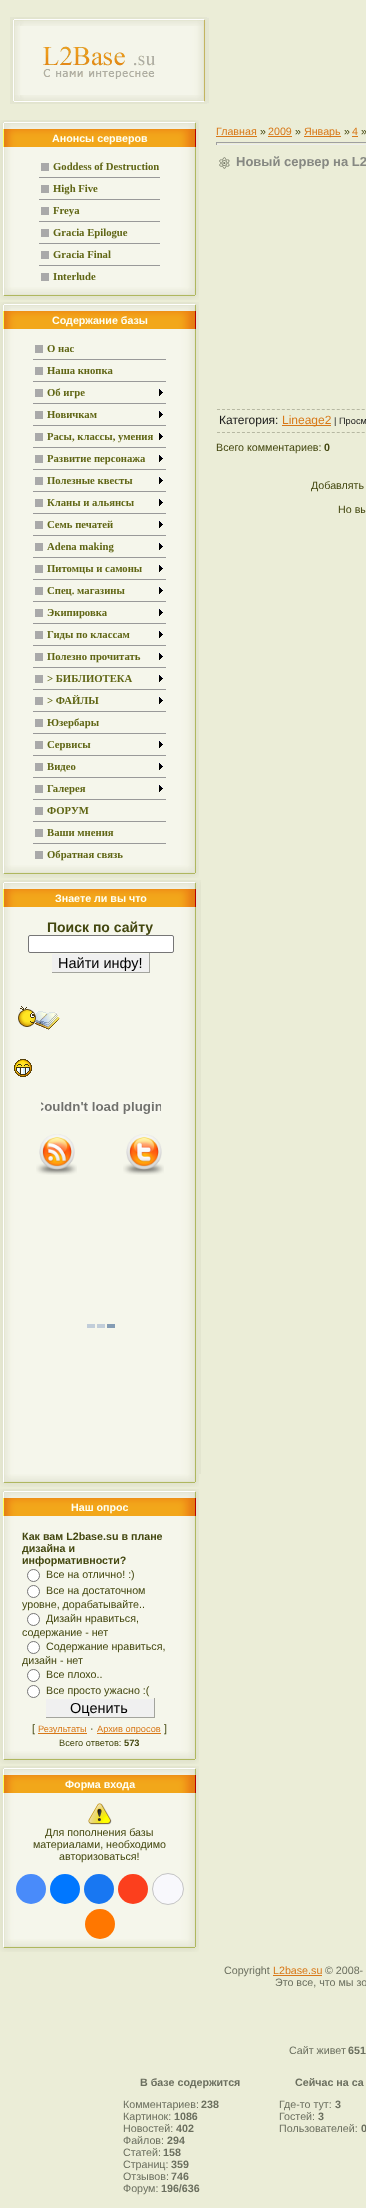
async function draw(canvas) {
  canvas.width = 366
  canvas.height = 2208
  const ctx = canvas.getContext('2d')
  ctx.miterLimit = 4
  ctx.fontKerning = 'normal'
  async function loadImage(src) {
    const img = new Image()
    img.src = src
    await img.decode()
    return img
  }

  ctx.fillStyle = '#ebedd7'
  ctx.fillRect(0, 0, 366, 2208)
  ctx.drawImage(await loadImage('image0.png'), 10, 17, 199, 87)
  ctx.drawImage(await loadImage('image1.png'), 0, 120, 199, 36)
  ctx.font = 'bold 10.7px Liberation Sans'
  ctx.fillStyle = '#fefff4'
  ctx.fillText('Анонсы серверов', 52, 142)
  ctx.drawImage(await loadImage('image2.png'), 0, 156, 199, 131)
  ctx.fillStyle = '#a9a9a9'
  ctx.fillRect(41, 163, 8, 8)
  ctx.font = 'bold 10.7px Liberation Serif'
  ctx.fillStyle = '#606615'
  ctx.fillText('Goddess of Destruction', 53, 170)
  ctx.fillStyle = '#999'
  ctx.fillRect(39, 177, 121, 1)
  ctx.fillStyle = '#a9a9a9'
  ctx.fillRect(41, 185, 8, 8)
  ctx.fillStyle = '#606615'
  ctx.fillText('High Five', 53, 192)
  ctx.fillStyle = '#999'
  ctx.fillRect(39, 199, 121, 1)
  ctx.fillStyle = '#a9a9a9'
  ctx.fillRect(41, 207, 8, 8)
  ctx.fillStyle = '#606615'
  ctx.fillText('Freya', 53, 214)
  ctx.fillStyle = '#999'
  ctx.fillRect(39, 221, 121, 1)
  ctx.fillStyle = '#a9a9a9'
  ctx.fillRect(41, 229, 8, 8)
  ctx.fillStyle = '#606615'
  ctx.fillText('Gracia Epilogue', 53, 236)
  ctx.fillStyle = '#999'
  ctx.fillRect(39, 243, 121, 1)
  ctx.fillStyle = '#a9a9a9'
  ctx.fillRect(41, 251, 8, 8)
  ctx.fillStyle = '#606615'
  ctx.fillText('Gracia Final', 53, 258)
  ctx.fillStyle = '#999'
  ctx.fillRect(39, 265, 121, 1)
  ctx.fillStyle = '#a9a9a9'
  ctx.fillRect(41, 273, 8, 8)
  ctx.fillStyle = '#606615'
  ctx.fillText('Interlude', 53, 280)
  ctx.drawImage(await loadImage('image3.png'), 0, 287, 199, 13)
  ctx.drawImage(await loadImage('image1.png'), 0, 302, 199, 36)
  ctx.font = 'bold 10.7px Liberation Sans'
  ctx.fillStyle = '#fefff4'
  ctx.fillText('Содержание базы', 52, 324)
  ctx.drawImage(await loadImage('image4.png'), 0, 338, 199, 527)
  ctx.fillStyle = '#a9a9a9'
  ctx.fillRect(35, 345, 8, 8)
  ctx.font = 'bold 10.7px Liberation Serif'
  ctx.fillStyle = '#606615'
  ctx.fillText('О нас', 47, 352)
  ctx.fillStyle = '#999'
  ctx.fillRect(33, 359, 133, 1)
  ctx.fillStyle = '#a9a9a9'
  ctx.fillRect(35, 367, 8, 8)
  ctx.fillStyle = '#606615'
  ctx.fillText('Наша кнопка', 47, 374)
  ctx.fillStyle = '#999'
  ctx.fillRect(33, 381, 133, 1)
  ctx.fillStyle = '#a9a9a9'
  ctx.fillRect(35, 389, 8, 8)
  ctx.fillStyle = '#606615'
  ctx.fillText('Об игре', 47, 396)
  ctx.drawImage(await loadImage('image5.png'), 159, 389, 4, 7)
  ctx.fillStyle = '#999'
  ctx.fillRect(33, 403, 133, 1)
  ctx.fillStyle = '#a9a9a9'
  ctx.fillRect(35, 411, 8, 8)
  ctx.fillStyle = '#606615'
  ctx.fillText('Новичкам', 47, 418)
  ctx.drawImage(await loadImage('image5.png'), 159, 411, 4, 7)
  ctx.fillStyle = '#999'
  ctx.fillRect(33, 425, 133, 1)
  ctx.fillStyle = '#a9a9a9'
  ctx.fillRect(35, 433, 8, 8)
  ctx.fillStyle = '#606615'
  ctx.fillText('Расы, классы, умения', 47, 440)
  ctx.drawImage(await loadImage('image5.png'), 159, 433, 4, 7)
  ctx.fillStyle = '#999'
  ctx.fillRect(33, 447, 133, 1)
  ctx.fillStyle = '#a9a9a9'
  ctx.fillRect(35, 455, 8, 8)
  ctx.fillStyle = '#606615'
  ctx.fillText('Развитие персонажа', 47, 462)
  ctx.drawImage(await loadImage('image5.png'), 159, 455, 4, 7)
  ctx.fillStyle = '#999'
  ctx.fillRect(33, 469, 133, 1)
  ctx.fillStyle = '#a9a9a9'
  ctx.fillRect(35, 477, 8, 8)
  ctx.fillStyle = '#606615'
  ctx.fillText('Полезные квесты', 47, 484)
  ctx.drawImage(await loadImage('image5.png'), 159, 477, 4, 7)
  ctx.fillStyle = '#999'
  ctx.fillRect(33, 491, 133, 1)
  ctx.fillStyle = '#a9a9a9'
  ctx.fillRect(35, 499, 8, 8)
  ctx.fillStyle = '#606615'
  ctx.fillText('Кланы и альянсы', 47, 506)
  ctx.drawImage(await loadImage('image5.png'), 159, 499, 4, 7)
  ctx.fillStyle = '#999'
  ctx.fillRect(33, 513, 133, 1)
  ctx.fillStyle = '#a9a9a9'
  ctx.fillRect(35, 521, 8, 8)
  ctx.fillStyle = '#606615'
  ctx.fillText('Семь печатей', 47, 528)
  ctx.drawImage(await loadImage('image5.png'), 159, 521, 4, 7)
  ctx.fillStyle = '#999'
  ctx.fillRect(33, 535, 133, 1)
  ctx.fillStyle = '#a9a9a9'
  ctx.fillRect(35, 543, 8, 8)
  ctx.fillStyle = '#606615'
  ctx.fillText('Adena making', 47, 550)
  ctx.drawImage(await loadImage('image5.png'), 159, 543, 4, 7)
  ctx.fillStyle = '#999'
  ctx.fillRect(33, 557, 133, 1)
  ctx.fillStyle = '#a9a9a9'
  ctx.fillRect(35, 565, 8, 8)
  ctx.fillStyle = '#606615'
  ctx.fillText('Питомцы и самоны', 47, 572)
  ctx.drawImage(await loadImage('image5.png'), 159, 565, 4, 7)
  ctx.fillStyle = '#999'
  ctx.fillRect(33, 579, 133, 1)
  ctx.fillStyle = '#a9a9a9'
  ctx.fillRect(35, 587, 8, 8)
  ctx.fillStyle = '#606615'
  ctx.fillText('Спец. магазины', 47, 594)
  ctx.drawImage(await loadImage('image5.png'), 159, 587, 4, 7)
  ctx.fillStyle = '#999'
  ctx.fillRect(33, 601, 133, 1)
  ctx.fillStyle = '#a9a9a9'
  ctx.fillRect(35, 609, 8, 8)
  ctx.fillStyle = '#606615'
  ctx.fillText('Экипировка', 47, 616)
  ctx.drawImage(await loadImage('image5.png'), 159, 609, 4, 7)
  ctx.fillStyle = '#999'
  ctx.fillRect(33, 623, 133, 1)
  ctx.fillStyle = '#a9a9a9'
  ctx.fillRect(35, 631, 8, 8)
  ctx.fillStyle = '#606615'
  ctx.fillText('Гиды по классам', 47, 638)
  ctx.drawImage(await loadImage('image5.png'), 159, 631, 4, 7)
  ctx.fillStyle = '#999'
  ctx.fillRect(33, 645, 133, 1)
  ctx.fillStyle = '#a9a9a9'
  ctx.fillRect(35, 653, 8, 8)
  ctx.fillStyle = '#606615'
  ctx.fillText('Полезно прочитать', 47, 660)
  ctx.drawImage(await loadImage('image5.png'), 159, 653, 4, 7)
  ctx.fillStyle = '#999'
  ctx.fillRect(33, 667, 133, 1)
  ctx.fillStyle = '#a9a9a9'
  ctx.fillRect(35, 675, 8, 8)
  ctx.fillStyle = '#606615'
  ctx.fillText('> БИБЛИОТЕКА', 47, 682)
  ctx.drawImage(await loadImage('image5.png'), 159, 675, 4, 7)
  ctx.fillStyle = '#999'
  ctx.fillRect(33, 689, 133, 1)
  ctx.fillStyle = '#a9a9a9'
  ctx.fillRect(35, 697, 8, 8)
  ctx.fillStyle = '#606615'
  ctx.fillText('> ФАЙЛЫ', 47, 704)
  ctx.drawImage(await loadImage('image5.png'), 159, 697, 4, 7)
  ctx.fillStyle = '#999'
  ctx.fillRect(33, 711, 133, 1)
  ctx.fillStyle = '#a9a9a9'
  ctx.fillRect(35, 719, 8, 8)
  ctx.fillStyle = '#606615'
  ctx.fillText('Юзербары', 47, 726)
  ctx.fillStyle = '#999'
  ctx.fillRect(33, 733, 133, 1)
  ctx.fillStyle = '#a9a9a9'
  ctx.fillRect(35, 741, 8, 8)
  ctx.fillStyle = '#606615'
  ctx.fillText('Сервисы', 47, 748)
  ctx.drawImage(await loadImage('image5.png'), 159, 741, 4, 7)
  ctx.fillStyle = '#999'
  ctx.fillRect(33, 755, 133, 1)
  ctx.fillStyle = '#a9a9a9'
  ctx.fillRect(35, 763, 8, 8)
  ctx.fillStyle = '#606615'
  ctx.fillText('Видео', 47, 770)
  ctx.drawImage(await loadImage('image5.png'), 159, 763, 4, 7)
  ctx.fillStyle = '#999'
  ctx.fillRect(33, 777, 133, 1)
  ctx.fillStyle = '#a9a9a9'
  ctx.fillRect(35, 785, 8, 8)
  ctx.fillStyle = '#606615'
  ctx.fillText('Галерея', 47, 792)
  ctx.drawImage(await loadImage('image5.png'), 159, 785, 4, 7)
  ctx.fillStyle = '#999'
  ctx.fillRect(33, 799, 133, 1)
  ctx.fillStyle = '#a9a9a9'
  ctx.fillRect(35, 807, 8, 8)
  ctx.fillStyle = '#606615'
  ctx.fillText('ФОРУМ', 47, 814)
  ctx.fillStyle = '#999'
  ctx.fillRect(33, 821, 133, 1)
  ctx.fillStyle = '#a9a9a9'
  ctx.fillRect(35, 829, 8, 8)
  ctx.fillStyle = '#606615'
  ctx.fillText('Ваши мнения', 47, 836)
  ctx.fillStyle = '#999'
  ctx.fillRect(33, 843, 133, 1)
  ctx.fillStyle = '#a9a9a9'
  ctx.fillRect(35, 851, 8, 8)
  ctx.fillStyle = '#606615'
  ctx.fillText('Обратная связь', 47, 858)
  ctx.drawImage(await loadImage('image3.png'), 0, 865, 199, 13)
  ctx.drawImage(await loadImage('image6.png'), 0, 880, 201, 36)
  ctx.font = 'bold 10.7px Liberation Sans'
  ctx.fillStyle = '#fefff4'
  ctx.fillText('Знаете ли вы что', 55, 902)
  ctx.drawImage(await loadImage('image7.png'), 0, 916, 201, 558)
  ctx.font = 'bold 14px Liberation Sans'
  ctx.fillStyle = '#43470f'
  ctx.fillText('Поиск по сайту', 47, 932)
  ctx.fillStyle = '#fff'
  ctx.beginPath()
  ctx.roundRect(28.5, 935.5, 145, 17, 1.5)
  ctx.fill()
  ctx.strokeStyle = '#767676'
  ctx.stroke()
  ctx.fillStyle = '#f0f0f0'
  ctx.fillRect(52, 954, 97, 18)
  ctx.fillStyle = '#a3a49d'
  ctx.fillRect(149, 953, 1, 20)
  ctx.fillRect(51, 972, 99, 1)
  ctx.fillStyle = '#f5f6eb'
  ctx.fillRect(51, 972, 1, 1)
  ctx.font = '14.5px Liberation Sans'
  ctx.fillStyle = '#000'
  ctx.fillText('Найти инфу!', 58, 968)
  ctx.drawImage(await loadImage('image8.png'), 18, 1006, 42, 24)
  ctx.drawImage(await loadImage('image9.png'), 14, 1059, 18, 18)
  ctx.drawImage(await loadImage('image10.png'), 41, 1102, 120, 12)
  ctx.drawImage(await loadImage('image11.png'), 36, 1134, 41, 41)
  ctx.drawImage(await loadImage('image12.png'), 123, 1134, 41, 41)
  ctx.drawImage(await loadImage('image13.png'), 87, 1324, 28, 4)
  ctx.drawImage(await loadImage('image3.png'), 0, 1474, 199, 13)
  ctx.drawImage(await loadImage('image1.png'), 0, 1489, 199, 36)
  ctx.font = 'bold 10.7px Liberation Sans'
  ctx.fillStyle = '#fefff4'
  ctx.fillText('Наш опрос', 71, 1511)
  ctx.drawImage(await loadImage('image14.png'), 0, 1525, 199, 226)
  ctx.fillStyle = '#43470f'
  ctx.fillText('Как вам L2base.su в плане', 22, 1540)
  ctx.fillText('дизайна и', 22, 1552)
  ctx.fillText('информативности?', 22, 1564)
  ctx.fillStyle = '#fff'
  ctx.beginPath()
  ctx.arc(33.5, 1575.5, 6, 0, 2 * Math.PI)
  ctx.fill()
  ctx.stroke()
  ctx.font = '10.7px Liberation Sans'
  ctx.fillStyle = '#43470f'
  ctx.fillText('Все на отлично! :)', 46, 1578)
  ctx.fillStyle = '#fff'
  ctx.beginPath()
  ctx.arc(33.5, 1591.5, 6, 0, 2 * Math.PI)
  ctx.fill()
  ctx.stroke()
  ctx.fillStyle = '#43470f'
  ctx.fillText('Все на достаточном', 46, 1594)
  ctx.fillText('уровне, дорабатывайте..', 22, 1608)
  ctx.fillStyle = '#fff'
  ctx.beginPath()
  ctx.arc(33.5, 1619.5, 6, 0, 2 * Math.PI)
  ctx.fill()
  ctx.stroke()
  ctx.fillStyle = '#43470f'
  ctx.fillText('Дизайн нравиться,', 46, 1622)
  ctx.fillText('содержание - нет', 22, 1636)
  ctx.fillStyle = '#fff'
  ctx.beginPath()
  ctx.arc(33.5, 1647.5, 6, 0, 2 * Math.PI)
  ctx.fill()
  ctx.stroke()
  ctx.fillStyle = '#43470f'
  ctx.fillText('Содержание нравиться,', 46, 1650)
  ctx.fillText('дизайн - нет', 22, 1664)
  ctx.fillStyle = '#fff'
  ctx.beginPath()
  ctx.arc(33.5, 1675.5, 6, 0, 2 * Math.PI)
  ctx.fill()
  ctx.stroke()
  ctx.fillStyle = '#43470f'
  ctx.fillText('Все плохо..', 46, 1678)
  ctx.fillStyle = '#fff'
  ctx.beginPath()
  ctx.arc(33.5, 1691.5, 6, 0, 2 * Math.PI)
  ctx.fill()
  ctx.stroke()
  ctx.fillStyle = '#43470f'
  ctx.fillText('Все просто ужасно :(', 46, 1694)
  ctx.fillStyle = '#f0f0f0'
  ctx.fillRect(46, 1699, 108, 18)
  ctx.fillStyle = '#a3a49d'
  ctx.fillRect(154, 1698, 1, 20)
  ctx.fillRect(45, 1717, 110, 1)
  ctx.fillStyle = '#f5f6eb'
  ctx.fillRect(45, 1717, 1, 1)
  ctx.font = '14.5px Liberation Sans'
  ctx.fillStyle = '#000'
  ctx.fillText('Оценить', 70, 1713)
  ctx.font = '10.7px Liberation Sans'
  ctx.fillStyle = '#43470f'
  ctx.fillText('[', 32, 1732)
  ctx.fillStyle = '#d87818'
  ctx.fillRect(38, 1733, 49, 1)
  ctx.font = '9.25px Liberation Sans'
  ctx.fillText('Результаты', 38, 1732)
  ctx.font = '10.7px Liberation Sans'
  ctx.fillStyle = '#43470f'
  ctx.fillText('·', 90, 1732)
  ctx.fillStyle = '#d87818'
  ctx.fillRect(97, 1733, 64, 1)
  ctx.font = '9.25px Liberation Sans'
  ctx.fillText('Архив опросов', 97, 1732)
  ctx.font = '10.7px Liberation Sans'
  ctx.fillStyle = '#43470f'
  ctx.fillText(']', 164, 1732)
  ctx.font = '9.25px Liberation Sans'
  ctx.fillText('Всего ответов:', 59, 1746)
  ctx.font = 'bold 9.25px Liberation Sans'
  ctx.fillText('573', 124, 1746)
  ctx.drawImage(await loadImage('image3.png'), 0, 1751, 199, 13)
  ctx.drawImage(await loadImage('image1.png'), 0, 1766, 199, 36)
  ctx.font = 'bold 10.7px Liberation Sans'
  ctx.fillStyle = '#fefff4'
  ctx.fillText('Форма входа', 65, 1788)
  ctx.drawImage(await loadImage('image15.png'), 0, 1802, 199, 137)
  ctx.drawImage(await loadImage('image16.png'), 88, 1803, 24, 22)
  ctx.font = '10.7px Liberation Sans'
  ctx.fillStyle = '#43470f'
  ctx.fillText('Для пополнения базы', 45, 1836)
  ctx.fillText('материалами, необходимо', 33, 1848)
  ctx.fillText('авторизоваться!', 59, 1860)
  ctx.fillStyle = '#498bfa'
  ctx.beginPath()
  ctx.arc(31, 1889, 15, 0, 2 * Math.PI)
  ctx.fill()
  ctx.fillStyle = '#07f'
  ctx.beginPath()
  ctx.arc(65, 1889, 15, 0, 2 * Math.PI)
  ctx.fill()
  ctx.fillStyle = '#1877f2'
  ctx.beginPath()
  ctx.arc(99, 1889, 15, 0, 2 * Math.PI)
  ctx.fill()
  ctx.fillStyle = '#fc3f1d'
  ctx.beginPath()
  ctx.arc(133, 1889, 15, 0, 2 * Math.PI)
  ctx.fill()
  ctx.fillStyle = '#f8f8fc'
  ctx.beginPath()
  ctx.arc(168, 1889, 15.5, 0, 2 * Math.PI)
  ctx.fill()
  ctx.strokeStyle = '#c4c4c4'
  ctx.stroke()
  ctx.fillStyle = '#f70'
  ctx.beginPath()
  ctx.arc(100, 1924, 15, 0, 2 * Math.PI)
  ctx.fill()
  ctx.drawImage(await loadImage('image3.png'), 0, 1939, 199, 13)
  ctx.fillStyle = '#d87818'
  ctx.fillText('Главная', 216, 135)
  ctx.fillRect(216, 136, 41, 1)
  ctx.fillStyle = '#43470f'
  ctx.fillText('»', 260, 135)
  ctx.fillStyle = '#d87818'
  ctx.fillText('2009', 268, 135)
  ctx.fillRect(268, 136, 24, 1)
  ctx.fillStyle = '#43470f'
  ctx.fillText('»', 295, 135)
  ctx.fillStyle = '#d87818'
  ctx.fillRect(304, 136, 37, 1)
  ctx.fillText('Январь', 304, 135)
  ctx.fillStyle = '#43470f'
  ctx.fillText('»', 344, 135)
  ctx.fillStyle = '#d87818'
  ctx.fillText('4', 352, 135)
  ctx.fillRect(352, 136, 6, 1)
  ctx.fillStyle = '#43470f'
  ctx.fillText('»', 361, 135)
  ctx.fillStyle = '#9f9f9f'
  ctx.fillRect(216, 142, 150, 1)
  ctx.fillStyle = '#eee'
  ctx.fillRect(216, 144, 150, 1)
  ctx.fillStyle = '#9f9f9f'
  ctx.fillRect(216, 142, 1, 3)
  ctx.drawImage(await loadImage('image17.png'), 219, 157, 11, 12)
  ctx.font = 'bold 13px Liberation Sans'
  ctx.fillStyle = '#868882'
  ctx.fillText('Новый сервер на L2', 236, 166)
  ctx.beginPath()
  ctx.moveTo(217, 409.5)
  ctx.lineTo(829, 409.5)
  ctx.strokeStyle = '#b6b8a2'
  ctx.setLineDash([3, 1.99])
  ctx.stroke()
  ctx.beginPath()
  ctx.moveTo(217, 432.5)
  ctx.lineTo(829, 432.5)
  ctx.stroke()
  ctx.font = '12px Liberation Sans'
  ctx.fillStyle = '#1a1a1a'
  ctx.fillText('Категория:', 219, 424)
  ctx.fillStyle = '#d87818'
  ctx.fillRect(282, 425, 49, 1)
  ctx.fillText('Lineage2', 282, 424)
  ctx.font = '9.25px Liberation Sans'
  ctx.fillStyle = '#1a1a1a'
  ctx.fillText('| Просм', 334, 424)
  ctx.font = '10.7px Liberation Sans'
  ctx.fillStyle = '#43470f'
  ctx.fillText('Всего комментариев:', 216, 451)
  ctx.font = 'bold 10.7px Liberation Sans'
  ctx.fillText('0', 324, 451)
  ctx.font = '10.7px Liberation Sans'
  ctx.fillText('Добавлять', 311, 489)
  ctx.fillText('Но вы', 338, 513)
  ctx.fillStyle = '#6b6f5f'
  ctx.fillText('Copyright', 224, 1974)
  ctx.fillStyle = '#d87818'
  ctx.fillText('L2base.su', 273, 1974)
  ctx.fillRect(273, 1975, 49, 1)
  ctx.fillStyle = '#6b6f5f'
  ctx.fillText('© 2008-', 325, 1974)
  ctx.fillText('Это все, что мы зо', 275, 1986)
  ctx.fillText('Сайт живет', 289, 2054)
  ctx.font = 'bold 10.7px Liberation Sans'
  ctx.fillText('651', 348, 2054)
  ctx.fillText('В базе содержится', 140, 2086)
  ctx.font = '10.7px Liberation Sans'
  ctx.fillText('Комментариев:', 123, 2108)
  ctx.font = 'bold 10.7px Liberation Sans'
  ctx.fillText('238', 201, 2108)
  ctx.font = '10.7px Liberation Sans'
  ctx.fillText('Картинок:', 123, 2120)
  ctx.font = 'bold 10.7px Liberation Sans'
  ctx.fillText('1086', 174, 2120)
  ctx.font = '10.7px Liberation Sans'
  ctx.fillText('Новостей:', 123, 2132)
  ctx.font = 'bold 10.7px Liberation Sans'
  ctx.fillText('402', 176, 2132)
  ctx.font = '10.7px Liberation Sans'
  ctx.fillText('Файлов:', 123, 2144)
  ctx.font = 'bold 10.7px Liberation Sans'
  ctx.fillText('294', 167, 2144)
  ctx.font = '10.7px Liberation Sans'
  ctx.fillText('Статей:', 123, 2156)
  ctx.font = 'bold 10.7px Liberation Sans'
  ctx.fillText('158', 163, 2156)
  ctx.font = '10.7px Liberation Sans'
  ctx.fillText('Страниц:', 123, 2168)
  ctx.font = 'bold 10.7px Liberation Sans'
  ctx.fillText('359', 171, 2168)
  ctx.font = '10.7px Liberation Sans'
  ctx.fillText('Отзывов:', 123, 2180)
  ctx.font = 'bold 10.7px Liberation Sans'
  ctx.fillText('746', 171, 2180)
  ctx.font = '10.7px Liberation Sans'
  ctx.fillText('Форум:', 123, 2192)
  ctx.font = 'bold 10.7px Liberation Sans'
  ctx.fillText('196/636', 161, 2192)
  ctx.fillText('Сейчас на са', 295, 2086)
  ctx.font = '10.7px Liberation Sans'
  ctx.fillText('Где-то тут:', 279, 2108)
  ctx.font = 'bold 10.7px Liberation Sans'
  ctx.fillText('3', 335, 2108)
  ctx.font = '10.7px Liberation Sans'
  ctx.fillText('Гостей:', 279, 2120)
  ctx.font = 'bold 10.7px Liberation Sans'
  ctx.fillText('3', 318, 2120)
  ctx.font = '10.7px Liberation Sans'
  ctx.fillText('Пользователей:', 279, 2132)
  ctx.font = 'bold 10.7px Liberation Sans'
  ctx.fillText('0', 361, 2132)
}

draw(document.querySelector('canvas'))
